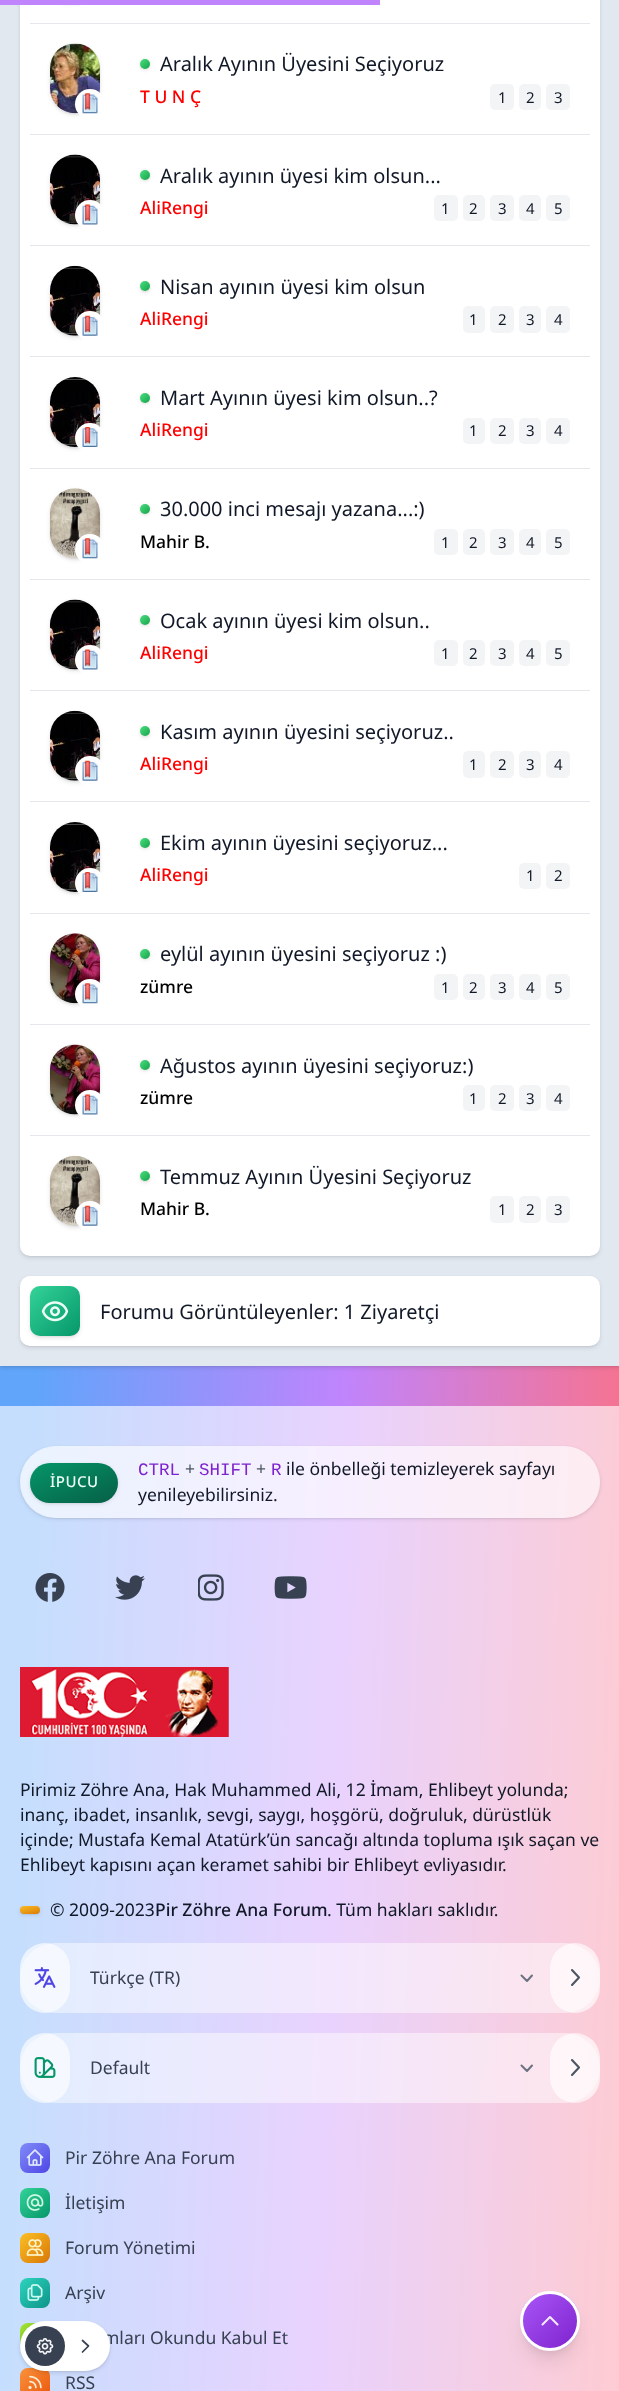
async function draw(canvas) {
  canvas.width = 619
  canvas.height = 2391
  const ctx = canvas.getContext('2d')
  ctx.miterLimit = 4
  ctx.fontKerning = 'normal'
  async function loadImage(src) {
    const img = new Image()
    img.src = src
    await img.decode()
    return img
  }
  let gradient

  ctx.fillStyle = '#fff'
  ctx.fillRect(0, 0, 619, 2391)
  gradient = ctx.createLinearGradient(0, 2379, 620, 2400)
  gradient.addColorStop(0, '#60a5fa')
  gradient.addColorStop(0.5, '#c084fc')
  gradient.addColorStop(1, '#fb7185')
  ctx.fillStyle = gradient
  ctx.beginPath()
  ctx.moveTo(0, 1275)
  ctx.lineTo(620, 1297)
  ctx.lineTo(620, 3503)
  ctx.lineTo(0, 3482)
  ctx.closePath()
  ctx.fill()
  ctx.fillStyle = '#0000001a'
  ctx.filter = 'blur(1px)'
  ctx.beginPath()
  ctx.rect(1, -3, 618, 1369)
  ctx.fill()
  ctx.filter = 'none'
  ctx.filter = 'blur(2px)'
  ctx.beginPath()
  ctx.rect(0, -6, 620, 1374)
  ctx.fill()
  ctx.filter = 'none'
  ctx.fillStyle = '#e2e8f0'
  ctx.fillRect(0, 0, 619, 1366)
  ctx.fillStyle = '#0000001a'
  ctx.filter = 'blur(1px)'
  ctx.beginPath()
  ctx.roundRect(21, -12, 578, 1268, 9)
  ctx.fill()
  ctx.filter = 'none'
  ctx.filter = 'blur(2px)'
  ctx.beginPath()
  ctx.roundRect(20, -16, 580, 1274, 10)
  ctx.fill()
  ctx.filter = 'none'
  ctx.fillStyle = '#fff'
  ctx.beginPath()
  ctx.roundRect(20, -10, 580, 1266, 10)
  ctx.fill()
  ctx.fillStyle = '#0000001a'
  ctx.filter = 'blur(2px)'
  ctx.beginPath()
  ctx.roundRect(50, -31, 50, 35, 25)
  ctx.fill()
  ctx.filter = 'none'
  ctx.fillStyle = '#fff'
  ctx.beginPath()
  ctx.roundRect(75, -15, 30, 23, 15)
  ctx.fill()
  ctx.fillStyle = '#c084fc'
  ctx.fillRect(0, 0, 380, 5)
  ctx.fillStyle = '#e5e7eb'
  ctx.fillRect(30, 23, 560, 1)
  ctx.fillStyle = '#0000001a'
  ctx.filter = 'blur(1px)'
  ctx.beginPath()
  ctx.roundRect(51, 46, 48, 68, 24)
  ctx.fill()
  ctx.filter = 'none'
  ctx.filter = 'blur(2px)'
  ctx.beginPath()
  ctx.roundRect(50, 45, 50, 70, 25)
  ctx.fill()
  ctx.filter = 'none'
  ctx.drawImage(await loadImage('image0.png'), 50, 43, 50, 71)
  ctx.fillStyle = '#fff'
  ctx.beginPath()
  ctx.arc(90, 104, 15, 0, 2 * Math.PI)
  ctx.fill()
  ctx.drawImage(await loadImage('image1.png'), 82, 93, 16, 21)
  ctx.fillStyle = '#0000001a'
  ctx.filter = 'blur(1px)'
  ctx.beginPath()
  ctx.roundRect(141, 61, 8, 8, 4)
  ctx.fill()
  ctx.filter = 'none'
  ctx.filter = 'blur(2px)'
  ctx.beginPath()
  ctx.roundRect(140, 60, 10, 10, 5)
  ctx.fill()
  ctx.filter = 'none'
  gradient = ctx.createLinearGradient(140, 59, 150, 69)
  gradient.addColorStop(0, '#4ade80')
  gradient.addColorStop(1, '#16a34a')
  ctx.fillStyle = gradient
  ctx.beginPath()
  ctx.arc(145, 64, 5, 0, 2 * Math.PI)
  ctx.fill()
  ctx.font = '20px Noto Sans'
  ctx.fillStyle = '#111827'
  ctx.fillText('Aralık Ayının Üyesini Seçiyoruz', 160, 71)
  ctx.font = '500 17.5px Noto Sans'
  ctx.fillStyle = '#f00'
  ctx.fillText('T U N Ç', 140, 103)
  ctx.fillStyle = '#f3f4f6'
  ctx.beginPath()
  ctx.roundRect(490, 84, 24, 26, 5)
  ctx.fill()
  ctx.font = '15px Noto Sans'
  ctx.fillStyle = '#111827'
  ctx.fillText('1', 498, 103)
  ctx.fillStyle = '#f3f4f6'
  ctx.beginPath()
  ctx.roundRect(519, 84, 22, 26, 5)
  ctx.fill()
  ctx.fillStyle = '#111827'
  ctx.fillText('2', 526, 103)
  ctx.fillStyle = '#f3f4f6'
  ctx.beginPath()
  ctx.roundRect(546, 84, 24, 26, 5)
  ctx.fill()
  ctx.fillStyle = '#111827'
  ctx.fillText('3', 554, 103)
  ctx.fillStyle = '#e5e7eb'
  ctx.fillRect(30, 134, 560, 1)
  ctx.fillStyle = '#0000001a'
  ctx.filter = 'blur(1px)'
  ctx.beginPath()
  ctx.roundRect(51, 158, 48, 67, 24)
  ctx.fill()
  ctx.filter = 'none'
  ctx.filter = 'blur(2px)'
  ctx.beginPath()
  ctx.roundRect(50, 156, 50, 70, 25)
  ctx.fill()
  ctx.filter = 'none'
  ctx.drawImage(await loadImage('image2.png'), 50, 154, 50, 71)
  ctx.fillStyle = '#fff'
  ctx.beginPath()
  ctx.arc(90, 215, 15, 0, 2 * Math.PI)
  ctx.fill()
  ctx.drawImage(await loadImage('image3.png'), 82, 204, 16, 21)
  ctx.fillStyle = '#0000001a'
  ctx.filter = 'blur(1px)'
  ctx.beginPath()
  ctx.roundRect(141, 173, 8, 7, 3.5)
  ctx.fill()
  ctx.filter = 'none'
  ctx.filter = 'blur(2px)'
  ctx.beginPath()
  ctx.roundRect(140, 171, 10, 10, 5)
  ctx.fill()
  ctx.filter = 'none'
  gradient = ctx.createLinearGradient(140, 170, 150, 180)
  gradient.addColorStop(0, '#4ade80')
  gradient.addColorStop(1, '#16a34a')
  ctx.fillStyle = gradient
  ctx.beginPath()
  ctx.arc(145, 175, 5, 0, 2 * Math.PI)
  ctx.fill()
  ctx.font = '20px Noto Sans'
  ctx.fillStyle = '#111827'
  ctx.fillText('Aralık ayının üyesi kim olsun...', 160, 183)
  ctx.font = '500 17.5px Noto Sans'
  ctx.fillStyle = '#f00'
  ctx.fillText('AliRengi', 140, 214)
  ctx.fillStyle = '#f3f4f6'
  ctx.beginPath()
  ctx.roundRect(434, 195, 24, 26, 5)
  ctx.fill()
  ctx.font = '15px Noto Sans'
  ctx.fillStyle = '#111827'
  ctx.fillText('1', 441, 214)
  ctx.fillStyle = '#f3f4f6'
  ctx.beginPath()
  ctx.roundRect(463, 195, 22, 26, 5)
  ctx.fill()
  ctx.fillStyle = '#111827'
  ctx.fillText('2', 469, 214)
  ctx.fillStyle = '#f3f4f6'
  ctx.beginPath()
  ctx.roundRect(490, 195, 24, 26, 5)
  ctx.fill()
  ctx.fillStyle = '#111827'
  ctx.fillText('3', 498, 214)
  ctx.fillStyle = '#f3f4f6'
  ctx.beginPath()
  ctx.roundRect(519, 195, 22, 26, 5)
  ctx.fill()
  ctx.fillStyle = '#111827'
  ctx.fillText('4', 526, 214)
  ctx.fillStyle = '#f3f4f6'
  ctx.beginPath()
  ctx.roundRect(546, 195, 24, 26, 5)
  ctx.fill()
  ctx.fillStyle = '#111827'
  ctx.fillText('5', 554, 214)
  ctx.fillStyle = '#e5e7eb'
  ctx.fillRect(30, 245, 560, 1)
  ctx.fillStyle = '#0000001a'
  ctx.filter = 'blur(1px)'
  ctx.beginPath()
  ctx.roundRect(51, 269, 48, 67, 24)
  ctx.fill()
  ctx.filter = 'none'
  ctx.filter = 'blur(2px)'
  ctx.beginPath()
  ctx.roundRect(50, 268, 50, 70, 25)
  ctx.fill()
  ctx.filter = 'none'
  ctx.drawImage(await loadImage('image4.png'), 50, 265, 50, 71)
  ctx.fillStyle = '#fff'
  ctx.beginPath()
  ctx.arc(90, 326, 15, 0, 2 * Math.PI)
  ctx.fill()
  ctx.drawImage(await loadImage('image5.png'), 82, 315, 16, 21)
  ctx.fillStyle = '#0000001a'
  ctx.filter = 'blur(1px)'
  ctx.beginPath()
  ctx.roundRect(141, 284, 8, 7, 3.5)
  ctx.fill()
  ctx.filter = 'none'
  ctx.filter = 'blur(2px)'
  ctx.beginPath()
  ctx.roundRect(140, 283, 10, 10, 5)
  ctx.fill()
  ctx.filter = 'none'
  gradient = ctx.createLinearGradient(140, 281, 150, 291)
  gradient.addColorStop(0, '#4ade80')
  gradient.addColorStop(1, '#16a34a')
  ctx.fillStyle = gradient
  ctx.beginPath()
  ctx.arc(145, 286, 5, 0, 2 * Math.PI)
  ctx.fill()
  ctx.font = '20px Noto Sans'
  ctx.fillStyle = '#111827'
  ctx.fillText('Nisan ayının üyesi kim olsun', 160, 294)
  ctx.font = '500 17.5px Noto Sans'
  ctx.fillStyle = '#f00'
  ctx.fillText('AliRengi', 140, 325)
  ctx.fillStyle = '#f3f4f6'
  ctx.beginPath()
  ctx.roundRect(463, 306, 22, 27, 5)
  ctx.fill()
  ctx.font = '15px Noto Sans'
  ctx.fillStyle = '#111827'
  ctx.fillText('1', 469, 325)
  ctx.fillStyle = '#f3f4f6'
  ctx.beginPath()
  ctx.roundRect(490, 306, 24, 27, 5)
  ctx.fill()
  ctx.fillStyle = '#111827'
  ctx.fillText('2', 498, 325)
  ctx.fillStyle = '#f3f4f6'
  ctx.beginPath()
  ctx.roundRect(519, 306, 22, 27, 5)
  ctx.fill()
  ctx.fillStyle = '#111827'
  ctx.fillText('3', 526, 325)
  ctx.fillStyle = '#f3f4f6'
  ctx.beginPath()
  ctx.roundRect(546, 306, 24, 27, 5)
  ctx.fill()
  ctx.fillStyle = '#111827'
  ctx.fillText('4', 554, 325)
  ctx.fillStyle = '#e5e7eb'
  ctx.fillRect(30, 356, 560, 1)
  ctx.fillStyle = '#0000001a'
  ctx.filter = 'blur(1px)'
  ctx.beginPath()
  ctx.roundRect(51, 380, 48, 68, 24)
  ctx.fill()
  ctx.filter = 'none'
  ctx.filter = 'blur(2px)'
  ctx.beginPath()
  ctx.roundRect(50, 379, 50, 70, 25)
  ctx.fill()
  ctx.filter = 'none'
  ctx.drawImage(await loadImage('image6.png'), 50, 377, 50, 70)
  ctx.fillStyle = '#fff'
  ctx.beginPath()
  ctx.arc(90, 438, 15, 0, 2 * Math.PI)
  ctx.fill()
  ctx.drawImage(await loadImage('image7.png'), 82, 427, 16, 20)
  ctx.fillStyle = '#0000001a'
  ctx.filter = 'blur(1px)'
  ctx.beginPath()
  ctx.roundRect(141, 395, 8, 8, 4)
  ctx.fill()
  ctx.filter = 'none'
  ctx.filter = 'blur(2px)'
  ctx.beginPath()
  ctx.roundRect(140, 394, 10, 10, 5)
  ctx.fill()
  ctx.filter = 'none'
  gradient = ctx.createLinearGradient(140, 393, 150, 403)
  gradient.addColorStop(0, '#4ade80')
  gradient.addColorStop(1, '#16a34a')
  ctx.fillStyle = gradient
  ctx.beginPath()
  ctx.arc(145, 398, 5, 0, 2 * Math.PI)
  ctx.fill()
  ctx.font = '20px Noto Sans'
  ctx.fillStyle = '#111827'
  ctx.fillText('Mart Ayının üyesi kim olsun..?', 160, 405)
  ctx.font = '500 17.5px Noto Sans'
  ctx.fillStyle = '#f00'
  ctx.fillText('AliRengi', 140, 436)
  ctx.fillStyle = '#f3f4f6'
  ctx.beginPath()
  ctx.roundRect(463, 418, 22, 26, 5)
  ctx.fill()
  ctx.font = '15px Noto Sans'
  ctx.fillStyle = '#111827'
  ctx.fillText('1', 469, 436)
  ctx.fillStyle = '#f3f4f6'
  ctx.beginPath()
  ctx.roundRect(490, 418, 24, 26, 5)
  ctx.fill()
  ctx.fillStyle = '#111827'
  ctx.fillText('2', 498, 436)
  ctx.fillStyle = '#f3f4f6'
  ctx.beginPath()
  ctx.roundRect(519, 418, 22, 26, 5)
  ctx.fill()
  ctx.fillStyle = '#111827'
  ctx.fillText('3', 526, 436)
  ctx.fillStyle = '#f3f4f6'
  ctx.beginPath()
  ctx.roundRect(546, 418, 24, 26, 5)
  ctx.fill()
  ctx.fillStyle = '#111827'
  ctx.fillText('4', 554, 436)
  ctx.fillStyle = '#e5e7eb'
  ctx.fillRect(30, 468, 560, 1)
  ctx.fillStyle = '#0000001a'
  ctx.filter = 'blur(1px)'
  ctx.beginPath()
  ctx.roundRect(51, 491, 48, 68, 24)
  ctx.fill()
  ctx.filter = 'none'
  ctx.filter = 'blur(2px)'
  ctx.beginPath()
  ctx.roundRect(50, 490, 50, 70, 25)
  ctx.fill()
  ctx.filter = 'none'
  ctx.drawImage(await loadImage('image8.png'), 50, 488, 50, 70)
  ctx.fillStyle = '#fff'
  ctx.beginPath()
  ctx.arc(90, 549, 15, 0, 2 * Math.PI)
  ctx.fill()
  ctx.drawImage(await loadImage('image1.png'), 82, 538, 16, 21)
  ctx.fillStyle = '#0000001a'
  ctx.filter = 'blur(1px)'
  ctx.beginPath()
  ctx.roundRect(141, 506, 8, 8, 4)
  ctx.fill()
  ctx.filter = 'none'
  ctx.filter = 'blur(2px)'
  ctx.beginPath()
  ctx.roundRect(140, 505, 10, 10, 5)
  ctx.fill()
  ctx.filter = 'none'
  gradient = ctx.createLinearGradient(140, 504, 150, 514)
  gradient.addColorStop(0, '#4ade80')
  gradient.addColorStop(1, '#16a34a')
  ctx.fillStyle = gradient
  ctx.beginPath()
  ctx.arc(145, 509, 5, 0, 2 * Math.PI)
  ctx.fill()
  ctx.font = '20px Noto Sans'
  ctx.fillStyle = '#111827'
  ctx.fillText('30.000 inci mesajı yazana...:)', 160, 516)
  ctx.font = '500 17.5px Noto Sans'
  ctx.fillStyle = '#000'
  ctx.fillText('Mahir B.', 140, 548)
  ctx.fillStyle = '#f3f4f6'
  ctx.beginPath()
  ctx.roundRect(434, 529, 24, 26, 5)
  ctx.fill()
  ctx.font = '15px Noto Sans'
  ctx.fillStyle = '#111827'
  ctx.fillText('1', 441, 548)
  ctx.fillStyle = '#f3f4f6'
  ctx.beginPath()
  ctx.roundRect(463, 529, 22, 26, 5)
  ctx.fill()
  ctx.fillStyle = '#111827'
  ctx.fillText('2', 469, 548)
  ctx.fillStyle = '#f3f4f6'
  ctx.beginPath()
  ctx.roundRect(490, 529, 24, 26, 5)
  ctx.fill()
  ctx.fillStyle = '#111827'
  ctx.fillText('3', 498, 548)
  ctx.fillStyle = '#f3f4f6'
  ctx.beginPath()
  ctx.roundRect(519, 529, 22, 26, 5)
  ctx.fill()
  ctx.fillStyle = '#111827'
  ctx.fillText('4', 526, 548)
  ctx.fillStyle = '#f3f4f6'
  ctx.beginPath()
  ctx.roundRect(546, 529, 24, 26, 5)
  ctx.fill()
  ctx.fillStyle = '#111827'
  ctx.fillText('5', 554, 548)
  ctx.fillStyle = '#e5e7eb'
  ctx.fillRect(30, 579, 560, 1)
  ctx.fillStyle = '#0000001a'
  ctx.filter = 'blur(1px)'
  ctx.beginPath()
  ctx.roundRect(51, 603, 48, 67, 24)
  ctx.fill()
  ctx.filter = 'none'
  ctx.filter = 'blur(2px)'
  ctx.beginPath()
  ctx.roundRect(50, 601, 50, 70, 25)
  ctx.fill()
  ctx.filter = 'none'
  ctx.drawImage(await loadImage('image2.png'), 50, 599, 50, 71)
  ctx.fillStyle = '#fff'
  ctx.beginPath()
  ctx.arc(90, 660, 15, 0, 2 * Math.PI)
  ctx.fill()
  ctx.drawImage(await loadImage('image3.png'), 82, 649, 16, 21)
  ctx.fillStyle = '#0000001a'
  ctx.filter = 'blur(1px)'
  ctx.beginPath()
  ctx.roundRect(141, 618, 8, 7, 3.5)
  ctx.fill()
  ctx.filter = 'none'
  ctx.filter = 'blur(2px)'
  ctx.beginPath()
  ctx.roundRect(140, 616, 10, 10, 5)
  ctx.fill()
  ctx.filter = 'none'
  gradient = ctx.createLinearGradient(140, 615, 150, 625)
  gradient.addColorStop(0, '#4ade80')
  gradient.addColorStop(1, '#16a34a')
  ctx.fillStyle = gradient
  ctx.beginPath()
  ctx.arc(145, 620, 5, 0, 2 * Math.PI)
  ctx.fill()
  ctx.font = '20px Noto Sans'
  ctx.fillStyle = '#111827'
  ctx.fillText('Ocak ayının üyesi kim olsun..', 160, 628)
  ctx.font = '500 17.5px Noto Sans'
  ctx.fillStyle = '#f00'
  ctx.fillText('AliRengi', 140, 659)
  ctx.fillStyle = '#f3f4f6'
  ctx.beginPath()
  ctx.roundRect(434, 640, 24, 26, 5)
  ctx.fill()
  ctx.font = '15px Noto Sans'
  ctx.fillStyle = '#111827'
  ctx.fillText('1', 441, 659)
  ctx.fillStyle = '#f3f4f6'
  ctx.beginPath()
  ctx.roundRect(463, 640, 22, 26, 5)
  ctx.fill()
  ctx.fillStyle = '#111827'
  ctx.fillText('2', 469, 659)
  ctx.fillStyle = '#f3f4f6'
  ctx.beginPath()
  ctx.roundRect(490, 640, 24, 26, 5)
  ctx.fill()
  ctx.fillStyle = '#111827'
  ctx.fillText('3', 498, 659)
  ctx.fillStyle = '#f3f4f6'
  ctx.beginPath()
  ctx.roundRect(519, 640, 22, 26, 5)
  ctx.fill()
  ctx.fillStyle = '#111827'
  ctx.fillText('4', 526, 659)
  ctx.fillStyle = '#f3f4f6'
  ctx.beginPath()
  ctx.roundRect(546, 640, 24, 26, 5)
  ctx.fill()
  ctx.fillStyle = '#111827'
  ctx.fillText('5', 554, 659)
  ctx.fillStyle = '#e5e7eb'
  ctx.fillRect(30, 690, 560, 1)
  ctx.fillStyle = '#0000001a'
  ctx.filter = 'blur(1px)'
  ctx.beginPath()
  ctx.roundRect(51, 714, 48, 67, 24)
  ctx.fill()
  ctx.filter = 'none'
  ctx.filter = 'blur(2px)'
  ctx.beginPath()
  ctx.roundRect(50, 713, 50, 70, 25)
  ctx.fill()
  ctx.filter = 'none'
  ctx.drawImage(await loadImage('image4.png'), 50, 710, 50, 71)
  ctx.fillStyle = '#fff'
  ctx.beginPath()
  ctx.arc(90, 771, 15, 0, 2 * Math.PI)
  ctx.fill()
  ctx.drawImage(await loadImage('image5.png'), 82, 760, 16, 21)
  ctx.fillStyle = '#0000001a'
  ctx.filter = 'blur(1px)'
  ctx.beginPath()
  ctx.roundRect(141, 729, 8, 7, 3.5)
  ctx.fill()
  ctx.filter = 'none'
  ctx.filter = 'blur(2px)'
  ctx.beginPath()
  ctx.roundRect(140, 728, 10, 10, 5)
  ctx.fill()
  ctx.filter = 'none'
  gradient = ctx.createLinearGradient(140, 726, 150, 736)
  gradient.addColorStop(0, '#4ade80')
  gradient.addColorStop(1, '#16a34a')
  ctx.fillStyle = gradient
  ctx.beginPath()
  ctx.arc(145, 731, 5, 0, 2 * Math.PI)
  ctx.fill()
  ctx.font = '20px Noto Sans'
  ctx.fillStyle = '#111827'
  ctx.fillText('Kasım ayının üyesini seçiyoruz..', 160, 739)
  ctx.font = '500 17.5px Noto Sans'
  ctx.fillStyle = '#f00'
  ctx.fillText('AliRengi', 140, 770)
  ctx.fillStyle = '#f3f4f6'
  ctx.beginPath()
  ctx.roundRect(463, 751, 22, 27, 5)
  ctx.fill()
  ctx.font = '15px Noto Sans'
  ctx.fillStyle = '#111827'
  ctx.fillText('1', 469, 770)
  ctx.fillStyle = '#f3f4f6'
  ctx.beginPath()
  ctx.roundRect(490, 751, 24, 27, 5)
  ctx.fill()
  ctx.fillStyle = '#111827'
  ctx.fillText('2', 498, 770)
  ctx.fillStyle = '#f3f4f6'
  ctx.beginPath()
  ctx.roundRect(519, 751, 22, 27, 5)
  ctx.fill()
  ctx.fillStyle = '#111827'
  ctx.fillText('3', 526, 770)
  ctx.fillStyle = '#f3f4f6'
  ctx.beginPath()
  ctx.roundRect(546, 751, 24, 27, 5)
  ctx.fill()
  ctx.fillStyle = '#111827'
  ctx.fillText('4', 554, 770)
  ctx.fillStyle = '#e5e7eb'
  ctx.fillRect(30, 801, 560, 1)
  ctx.fillStyle = '#0000001a'
  ctx.filter = 'blur(1px)'
  ctx.beginPath()
  ctx.roundRect(51, 825, 48, 68, 24)
  ctx.fill()
  ctx.filter = 'none'
  ctx.filter = 'blur(2px)'
  ctx.beginPath()
  ctx.roundRect(50, 824, 50, 70, 25)
  ctx.fill()
  ctx.filter = 'none'
  ctx.drawImage(await loadImage('image9.png'), 50, 822, 50, 70)
  ctx.fillStyle = '#fff'
  ctx.beginPath()
  ctx.arc(90, 883, 15, 0, 2 * Math.PI)
  ctx.fill()
  ctx.drawImage(await loadImage('image7.png'), 82, 872, 16, 20)
  ctx.fillStyle = '#0000001a'
  ctx.filter = 'blur(1px)'
  ctx.beginPath()
  ctx.roundRect(141, 840, 8, 8, 4)
  ctx.fill()
  ctx.filter = 'none'
  ctx.filter = 'blur(2px)'
  ctx.beginPath()
  ctx.roundRect(140, 839, 10, 10, 5)
  ctx.fill()
  ctx.filter = 'none'
  gradient = ctx.createLinearGradient(140, 838, 150, 848)
  gradient.addColorStop(0, '#4ade80')
  gradient.addColorStop(1, '#16a34a')
  ctx.fillStyle = gradient
  ctx.beginPath()
  ctx.arc(145, 843, 5, 0, 2 * Math.PI)
  ctx.fill()
  ctx.font = '20px Noto Sans'
  ctx.fillStyle = '#111827'
  ctx.fillText('Ekim ayının üyesini seçiyoruz...', 160, 850)
  ctx.font = '500 17.5px Noto Sans'
  ctx.fillStyle = '#f00'
  ctx.fillText('AliRengi', 140, 881)
  ctx.fillStyle = '#f3f4f6'
  ctx.beginPath()
  ctx.roundRect(519, 863, 22, 26, 5)
  ctx.fill()
  ctx.font = '15px Noto Sans'
  ctx.fillStyle = '#111827'
  ctx.fillText('1', 526, 881)
  ctx.fillStyle = '#f3f4f6'
  ctx.beginPath()
  ctx.roundRect(546, 863, 24, 26, 5)
  ctx.fill()
  ctx.fillStyle = '#111827'
  ctx.fillText('2', 554, 881)
  ctx.fillStyle = '#e5e7eb'
  ctx.fillRect(30, 913, 560, 1)
  ctx.fillStyle = '#0000001a'
  ctx.filter = 'blur(1px)'
  ctx.beginPath()
  ctx.roundRect(51, 936, 48, 68, 24)
  ctx.fill()
  ctx.filter = 'none'
  ctx.filter = 'blur(2px)'
  ctx.beginPath()
  ctx.roundRect(50, 935, 50, 70, 25)
  ctx.fill()
  ctx.filter = 'none'
  ctx.drawImage(await loadImage('image10.png'), 50, 933, 50, 71)
  ctx.fillStyle = '#fff'
  ctx.beginPath()
  ctx.arc(90, 994, 15, 0, 2 * Math.PI)
  ctx.fill()
  ctx.drawImage(await loadImage('image1.png'), 82, 983, 16, 21)
  ctx.fillStyle = '#0000001a'
  ctx.filter = 'blur(1px)'
  ctx.beginPath()
  ctx.roundRect(141, 951, 8, 8, 4)
  ctx.fill()
  ctx.filter = 'none'
  ctx.filter = 'blur(2px)'
  ctx.beginPath()
  ctx.roundRect(140, 950, 10, 10, 5)
  ctx.fill()
  ctx.filter = 'none'
  gradient = ctx.createLinearGradient(140, 949, 150, 959)
  gradient.addColorStop(0, '#4ade80')
  gradient.addColorStop(1, '#16a34a')
  ctx.fillStyle = gradient
  ctx.beginPath()
  ctx.arc(145, 954, 5, 0, 2 * Math.PI)
  ctx.fill()
  ctx.font = '20px Noto Sans'
  ctx.fillStyle = '#111827'
  ctx.fillText('eylül ayının üyesini seçiyoruz :)', 160, 961)
  ctx.font = '500 17.5px Noto Sans'
  ctx.fillStyle = '#000'
  ctx.fillText('zümre', 140, 993)
  ctx.fillStyle = '#f3f4f6'
  ctx.beginPath()
  ctx.roundRect(434, 974, 24, 26, 5)
  ctx.fill()
  ctx.font = '15px Noto Sans'
  ctx.fillStyle = '#111827'
  ctx.fillText('1', 441, 993)
  ctx.fillStyle = '#f3f4f6'
  ctx.beginPath()
  ctx.roundRect(463, 974, 22, 26, 5)
  ctx.fill()
  ctx.fillStyle = '#111827'
  ctx.fillText('2', 469, 993)
  ctx.fillStyle = '#f3f4f6'
  ctx.beginPath()
  ctx.roundRect(490, 974, 24, 26, 5)
  ctx.fill()
  ctx.fillStyle = '#111827'
  ctx.fillText('3', 498, 993)
  ctx.fillStyle = '#f3f4f6'
  ctx.beginPath()
  ctx.roundRect(519, 974, 22, 26, 5)
  ctx.fill()
  ctx.fillStyle = '#111827'
  ctx.fillText('4', 526, 993)
  ctx.fillStyle = '#f3f4f6'
  ctx.beginPath()
  ctx.roundRect(546, 974, 24, 26, 5)
  ctx.fill()
  ctx.fillStyle = '#111827'
  ctx.fillText('5', 554, 993)
  ctx.fillStyle = '#e5e7eb'
  ctx.fillRect(30, 1024, 560, 1)
  ctx.fillStyle = '#0000001a'
  ctx.filter = 'blur(1px)'
  ctx.beginPath()
  ctx.roundRect(51, 1048, 48, 67, 24)
  ctx.fill()
  ctx.filter = 'none'
  ctx.filter = 'blur(2px)'
  ctx.beginPath()
  ctx.roundRect(50, 1046, 50, 70, 25)
  ctx.fill()
  ctx.filter = 'none'
  ctx.drawImage(await loadImage('image11.png'), 50, 1044, 50, 71)
  ctx.fillStyle = '#fff'
  ctx.beginPath()
  ctx.arc(90, 1105, 15, 0, 2 * Math.PI)
  ctx.fill()
  ctx.drawImage(await loadImage('image3.png'), 82, 1094, 16, 21)
  ctx.fillStyle = '#0000001a'
  ctx.filter = 'blur(1px)'
  ctx.beginPath()
  ctx.roundRect(141, 1063, 8, 7, 3.5)
  ctx.fill()
  ctx.filter = 'none'
  ctx.filter = 'blur(2px)'
  ctx.beginPath()
  ctx.roundRect(140, 1061, 10, 10, 5)
  ctx.fill()
  ctx.filter = 'none'
  gradient = ctx.createLinearGradient(140, 1060, 150, 1070)
  gradient.addColorStop(0, '#4ade80')
  gradient.addColorStop(1, '#16a34a')
  ctx.fillStyle = gradient
  ctx.beginPath()
  ctx.arc(145, 1065, 5, 0, 2 * Math.PI)
  ctx.fill()
  ctx.font = '20px Noto Sans'
  ctx.fillStyle = '#111827'
  ctx.fillText('Ağustos ayının üyesini seçiyoruz:)', 160, 1073)
  ctx.font = '500 17.5px Noto Sans'
  ctx.fillStyle = '#000'
  ctx.fillText('zümre', 140, 1104)
  ctx.fillStyle = '#f3f4f6'
  ctx.beginPath()
  ctx.roundRect(463, 1085, 22, 26, 5)
  ctx.fill()
  ctx.font = '15px Noto Sans'
  ctx.fillStyle = '#111827'
  ctx.fillText('1', 469, 1104)
  ctx.fillStyle = '#f3f4f6'
  ctx.beginPath()
  ctx.roundRect(490, 1085, 24, 26, 5)
  ctx.fill()
  ctx.fillStyle = '#111827'
  ctx.fillText('2', 498, 1104)
  ctx.fillStyle = '#f3f4f6'
  ctx.beginPath()
  ctx.roundRect(519, 1085, 22, 26, 5)
  ctx.fill()
  ctx.fillStyle = '#111827'
  ctx.fillText('3', 526, 1104)
  ctx.fillStyle = '#f3f4f6'
  ctx.beginPath()
  ctx.roundRect(546, 1085, 24, 26, 5)
  ctx.fill()
  ctx.fillStyle = '#111827'
  ctx.fillText('4', 554, 1104)
  ctx.fillStyle = '#e5e7eb'
  ctx.fillRect(30, 1135, 560, 1)
  ctx.fillStyle = '#0000001a'
  ctx.filter = 'blur(1px)'
  ctx.beginPath()
  ctx.roundRect(51, 1159, 48, 67, 24)
  ctx.fill()
  ctx.filter = 'none'
  ctx.filter = 'blur(2px)'
  ctx.beginPath()
  ctx.roundRect(50, 1158, 50, 70, 25)
  ctx.fill()
  ctx.filter = 'none'
  ctx.drawImage(await loadImage('image12.png'), 50, 1155, 50, 71)
  ctx.fillStyle = '#fff'
  ctx.beginPath()
  ctx.arc(90, 1216, 15, 0, 2 * Math.PI)
  ctx.fill()
  ctx.drawImage(await loadImage('image5.png'), 82, 1205, 16, 21)
  ctx.fillStyle = '#0000001a'
  ctx.filter = 'blur(1px)'
  ctx.beginPath()
  ctx.roundRect(141, 1174, 8, 7, 3.5)
  ctx.fill()
  ctx.filter = 'none'
  ctx.filter = 'blur(2px)'
  ctx.beginPath()
  ctx.roundRect(140, 1173, 10, 10, 5)
  ctx.fill()
  ctx.filter = 'none'
  gradient = ctx.createLinearGradient(140, 1171, 150, 1181)
  gradient.addColorStop(0, '#4ade80')
  gradient.addColorStop(1, '#16a34a')
  ctx.fillStyle = gradient
  ctx.beginPath()
  ctx.arc(145, 1176, 5, 0, 2 * Math.PI)
  ctx.fill()
  ctx.font = '20px Noto Sans'
  ctx.fillStyle = '#111827'
  ctx.fillText('Temmuz Ayının Üyesini Seçiyoruz', 160, 1184)
  ctx.font = '500 17.5px Noto Sans'
  ctx.fillStyle = '#000'
  ctx.fillText('Mahir B.', 140, 1215)
  ctx.fillStyle = '#f3f4f6'
  ctx.beginPath()
  ctx.roundRect(490, 1196, 24, 27, 5)
  ctx.fill()
  ctx.font = '15px Noto Sans'
  ctx.fillStyle = '#111827'
  ctx.fillText('1', 498, 1215)
  ctx.fillStyle = '#f3f4f6'
  ctx.beginPath()
  ctx.roundRect(519, 1196, 22, 27, 5)
  ctx.fill()
  ctx.fillStyle = '#111827'
  ctx.fillText('2', 526, 1215)
  ctx.fillStyle = '#f3f4f6'
  ctx.beginPath()
  ctx.roundRect(546, 1196, 24, 27, 5)
  ctx.fill()
  ctx.fillStyle = '#111827'
  ctx.fillText('3', 554, 1215)
  ctx.fillStyle = '#0000001a'
  ctx.filter = 'blur(1px)'
  ctx.beginPath()
  ctx.roundRect(21, 1279, 578, 67, 9)
  ctx.fill()
  ctx.filter = 'none'
  ctx.filter = 'blur(2px)'
  ctx.beginPath()
  ctx.roundRect(20, 1278, 580, 70, 10)
  ctx.fill()
  ctx.filter = 'none'
  ctx.fillStyle = '#fff'
  ctx.beginPath()
  ctx.roundRect(20, 1276, 580, 70, 10)
  ctx.fill()
  ctx.fillStyle = '#0000001a'
  ctx.filter = 'blur(1px)'
  ctx.beginPath()
  ctx.roundRect(31, 1289, 48, 47, 9)
  ctx.fill()
  ctx.filter = 'none'
  ctx.filter = 'blur(2px)'
  ctx.beginPath()
  ctx.roundRect(30, 1288, 50, 50, 10)
  ctx.fill()
  ctx.filter = 'none'
  gradient = ctx.createLinearGradient(30, 1286, 80, 1336)
  gradient.addColorStop(0, '#34d399')
  gradient.addColorStop(1, '#059669')
  ctx.fillStyle = gradient
  ctx.beginPath()
  ctx.roundRect(30, 1286, 50, 50, 10)
  ctx.fill()
  ctx.drawImage(await loadImage('image13.png'), 41, 1301, 28, 21)
  ctx.font = '20px Noto Sans'
  ctx.fillStyle = '#111827'
  ctx.fillText('Forumu Görüntüleyenler: 1 Ziyaretçi', 100, 1319)
  ctx.fillStyle = '#ffffffa3'
  ctx.fillRect(0, 1406, 619, 985)
  ctx.save()
  ctx.beginPath()
  ctx.moveTo(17, 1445)
  ctx.lineTo(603, 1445)
  ctx.lineTo(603, 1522)
  ctx.lineTo(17, 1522)
  ctx.closePath()
  ctx.moveTo(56, 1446)
  ctx.lineTo(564, 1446)
  ctx.bezierCurveTo(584, 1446, 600, 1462, 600, 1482)
  ctx.bezierCurveTo(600, 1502, 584, 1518, 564, 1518)
  ctx.lineTo(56, 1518)
  ctx.bezierCurveTo(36, 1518, 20, 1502, 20, 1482)
  ctx.bezierCurveTo(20, 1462, 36, 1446, 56, 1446)
  ctx.closePath()
  ctx.clip('evenodd')
  ctx.fillStyle = '#0000001a'
  ctx.filter = 'blur(1px)'
  ctx.beginPath()
  ctx.roundRect(21, 1449, 578, 69, 34.5)
  ctx.fill()
  ctx.filter = 'none'
  ctx.restore()
  ctx.save()
  ctx.beginPath()
  ctx.moveTo(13, 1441)
  ctx.lineTo(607, 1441)
  ctx.lineTo(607, 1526)
  ctx.lineTo(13, 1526)
  ctx.closePath()
  ctx.moveTo(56, 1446)
  ctx.lineTo(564, 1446)
  ctx.bezierCurveTo(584, 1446, 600, 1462, 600, 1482)
  ctx.bezierCurveTo(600, 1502, 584, 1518, 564, 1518)
  ctx.lineTo(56, 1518)
  ctx.bezierCurveTo(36, 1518, 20, 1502, 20, 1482)
  ctx.bezierCurveTo(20, 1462, 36, 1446, 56, 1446)
  ctx.closePath()
  ctx.clip('evenodd')
  ctx.fillStyle = '#0000001a'
  ctx.filter = 'blur(2px)'
  ctx.beginPath()
  ctx.roundRect(20, 1448, 580, 71, 35.5)
  ctx.fill()
  ctx.filter = 'none'
  ctx.restore()
  ctx.beginPath()
  ctx.roundRect(20, 1446, 580, 72, 36)
  ctx.fill()
  ctx.fillStyle = '#0000001a'
  ctx.filter = 'blur(1px)'
  ctx.beginPath()
  ctx.roundRect(31, 1465, 85, 38, 19)
  ctx.fill()
  ctx.filter = 'none'
  ctx.filter = 'blur(2px)'
  ctx.beginPath()
  ctx.roundRect(30, 1464, 88, 40, 20)
  ctx.fill()
  ctx.filter = 'none'
  gradient = ctx.createLinearGradient(59, 1449, 89, 1516)
  gradient.addColorStop(0, '#059669')
  gradient.addColorStop(1, '#065f46')
  ctx.fillStyle = gradient
  ctx.beginPath()
  ctx.roundRect(30, 1463, 88, 40, 20)
  ctx.fill()
  ctx.letterSpacing = '0.5px'
  ctx.font = '500 15px Noto Sans'
  ctx.fillStyle = '#ecfdf5'
  ctx.fillText('İPUCU', 50, 1487)
  ctx.letterSpacing = '0px'
  ctx.font = '17.5px Liberation Mono'
  ctx.fillStyle = '#7e22ce'
  ctx.fillText('CTRL', 138, 1475)
  ctx.font = '17.5px Noto Sans'
  ctx.fillStyle = '#4b5563'
  ctx.fillText('+', 185, 1475)
  ctx.font = '17.5px Liberation Mono'
  ctx.fillStyle = '#7e22ce'
  ctx.fillText('SHIFT', 199, 1475)
  ctx.font = '17.5px Noto Sans'
  ctx.fillStyle = '#4b5563'
  ctx.fillText('+', 256, 1475)
  ctx.font = '17.5px Liberation Mono'
  ctx.fillStyle = '#7e22ce'
  ctx.fillText('R', 271, 1475)
  ctx.font = '17.5px Noto Sans'
  ctx.fillStyle = '#111827'
  ctx.fillText('ile önbelleği temizleyerek sayfayı', 286, 1475)
  ctx.fillText('yenileyebilirsiniz.', 138, 1501)
  ctx.drawImage(await loadImage('image14.png'), 35, 1573, 30, 29)
  ctx.drawImage(await loadImage('image15.png'), 115, 1575, 30, 25)
  ctx.drawImage(await loadImage('image16.png'), 198, 1574, 26, 27)
  ctx.drawImage(await loadImage('image17.png'), 274, 1576, 33, 23)
  ctx.drawImage(await loadImage('image18.png'), 20, 1667, 209, 70)
  ctx.fillText('Pirimiz Zöhre Ana, Hak Muhammed Ali, 12 İmam, Ehlibeyt yolunda;', 20, 1796)
  ctx.fillText('inanç, ibadet, insanlık, sevgi, saygı, hoşgörü, doğruluk, dürüstlük', 20, 1821)
  ctx.fillText('içinde; Mustafa Kemal Atatürk’ün sancağı altında topluma ışık saçan ve', 20, 1846)
  ctx.fillText('Ehlibeyt kapısını açan keramet sahibi bir Ehlibeyt evliyasıdır.', 20, 1871)
  ctx.fillStyle = '#0000001a'
  ctx.filter = 'blur(1px)'
  ctx.beginPath()
  ctx.roundRect(21, 1909, 18, 5, 2.5)
  ctx.fill()
  ctx.filter = 'none'
  ctx.filter = 'blur(2px)'
  ctx.beginPath()
  ctx.roundRect(20, 1908, 20, 7, 3.5)
  ctx.fill()
  ctx.filter = 'none'
  gradient = ctx.createLinearGradient(28, 1903, 32, 1917)
  gradient.addColorStop(0, '#fbbf24')
  gradient.addColorStop(1, '#d97706')
  ctx.fillStyle = gradient
  ctx.beginPath()
  ctx.roundRect(20, 1906, 20, 8, 4)
  ctx.fill()
  ctx.fillStyle = '#111827'
  ctx.fillText('© 2009-2023', 50, 1916)
  ctx.font = '500 17.5px Noto Sans'
  ctx.fillText('Pir Zöhre Ana Forum', 155, 1916)
  ctx.font = '17.5px Noto Sans'
  ctx.fillText('. Tüm hakları saklıdır.', 327, 1916)
  ctx.fillStyle = '#ffffff7a'
  ctx.beginPath()
  ctx.roundRect(20, 1943, 580, 70, 35)
  ctx.fill()
  ctx.fillStyle = '#ffffffa3'
  ctx.beginPath()
  ctx.roundRect(20, 1943, 50, 70, 25)
  ctx.fill()
  ctx.drawImage(await loadImage('image19.png'), 34, 1967, 22, 21)
  ctx.beginPath()
  ctx.moveTo(521.5, 1975.5)
  ctx.lineTo(527, 1981)
  ctx.lineTo(532, 1975.5)
  ctx.strokeStyle = '#6b7280'
  ctx.lineWidth = 2
  ctx.lineCap = 'round'
  ctx.lineJoin = 'round'
  ctx.stroke()
  ctx.fillStyle = '#374151'
  ctx.fillText('Türkçe (TR)', 90, 1984)
  ctx.fillStyle = '#ffffffa3'
  ctx.beginPath()
  ctx.roundRect(550, 1943, 50, 70, 25)
  ctx.fill()
  ctx.beginPath()
  ctx.moveTo(572, 1970)
  ctx.lineTo(579, 1977.5)
  ctx.lineTo(572, 1985)
  ctx.strokeStyle = '#4b5563'
  ctx.lineWidth = 2.1
  ctx.stroke()
  ctx.fillStyle = '#ffffff7a'
  ctx.beginPath()
  ctx.roundRect(20, 2033, 580, 70, 35)
  ctx.fill()
  ctx.fillStyle = '#ffffffa3'
  ctx.beginPath()
  ctx.roundRect(20, 2033, 50, 70, 25)
  ctx.fill()
  ctx.drawImage(await loadImage('image20.png'), 34, 2057, 22, 21)
  ctx.beginPath()
  ctx.moveTo(521.5, 2065.5)
  ctx.lineTo(527, 2071)
  ctx.lineTo(532, 2065.5)
  ctx.strokeStyle = '#6b7280'
  ctx.lineWidth = 2
  ctx.stroke()
  ctx.fillStyle = '#374151'
  ctx.fillText('Default', 90, 2074)
  ctx.fillStyle = '#ffffffa3'
  ctx.beginPath()
  ctx.roundRect(550, 2033, 50, 70, 25)
  ctx.fill()
  ctx.beginPath()
  ctx.moveTo(572, 2060)
  ctx.lineTo(579, 2067.5)
  ctx.lineTo(572, 2075)
  ctx.strokeStyle = '#4b5563'
  ctx.lineWidth = 2.1
  ctx.stroke()
  gradient = ctx.createLinearGradient(20, 2143, 50, 2173)
  gradient.addColorStop(0, '#818cf8')
  gradient.addColorStop(1, '#4f46e5')
  ctx.fillStyle = gradient
  ctx.beginPath()
  ctx.roundRect(20, 2143, 30, 30, 8)
  ctx.fill()
  ctx.drawImage(await loadImage('image21.png'), 26, 2149, 18, 17)
  ctx.fillStyle = '#374151'
  ctx.fillText('Pir Zöhre Ana Forum', 65, 2164)
  gradient = ctx.createLinearGradient(20, 2188, 50, 2218)
  gradient.addColorStop(0, '#34d399')
  gradient.addColorStop(1, '#059669')
  ctx.fillStyle = gradient
  ctx.beginPath()
  ctx.roundRect(20, 2188, 30, 30, 8)
  ctx.fill()
  ctx.drawImage(await loadImage('image22.png'), 26, 2194, 18, 17)
  ctx.fillStyle = '#374151'
  ctx.fillText('İletişim', 65, 2209)
  gradient = ctx.createLinearGradient(20, 2233, 50, 2263)
  gradient.addColorStop(0, '#fbbf24')
  gradient.addColorStop(1, '#d97706')
  ctx.fillStyle = gradient
  ctx.beginPath()
  ctx.roundRect(20, 2233, 30, 30, 8)
  ctx.fill()
  ctx.drawImage(await loadImage('image23.png'), 26, 2239, 18, 17)
  ctx.fillStyle = '#374151'
  ctx.fillText('Forum Yönetimi', 65, 2254)
  gradient = ctx.createLinearGradient(20, 2278, 50, 2308)
  gradient.addColorStop(0, '#2dd4bf')
  gradient.addColorStop(1, '#0d9488')
  ctx.fillStyle = gradient
  ctx.beginPath()
  ctx.roundRect(20, 2278, 30, 30, 8)
  ctx.fill()
  ctx.drawImage(await loadImage('image24.png'), 27, 2284, 16, 17)
  ctx.fillStyle = '#374151'
  ctx.fillText('Arşiv', 65, 2299)
  gradient = ctx.createLinearGradient(20, 2323, 50, 2353)
  gradient.addColorStop(0, '#a3e635')
  gradient.addColorStop(1, '#65a30d')
  ctx.fillStyle = gradient
  ctx.beginPath()
  ctx.roundRect(20, 2323, 30, 30, 8)
  ctx.fill()
  ctx.fillStyle = '#374151'
  ctx.fillText('mları Okundu Kabul Et', 103, 2344)
  gradient = ctx.createLinearGradient(20, 2368, 50, 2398)
  gradient.addColorStop(0, '#fb923c')
  gradient.addColorStop(1, '#ea580c')
  ctx.fillStyle = gradient
  ctx.beginPath()
  ctx.roundRect(20, 2368, 30, 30, 8)
  ctx.fill()
  ctx.drawImage(await loadImage('image25.png'), 28, 2375, 14, 15)
  ctx.fillStyle = '#374151'
  ctx.fillText('RSS', 65, 2389)
  ctx.fillStyle = '#0000001a'
  ctx.filter = 'blur(1px)'
  ctx.beginPath()
  ctx.roundRect(21, 2324, 88, 47, 23.5)
  ctx.fill()
  ctx.filter = 'none'
  ctx.filter = 'blur(2px)'
  ctx.beginPath()
  ctx.roundRect(20, 2323, 90, 50, 25)
  ctx.fill()
  ctx.filter = 'none'
  ctx.fillStyle = '#fff'
  ctx.beginPath()
  ctx.roundRect(20, 2321, 90, 50, 25)
  ctx.fill()
  ctx.fillStyle = '#374151'
  ctx.beginPath()
  ctx.arc(45, 2346, 20, 0, 2 * Math.PI)
  ctx.fill()
  ctx.drawImage(await loadImage('image26.png'), 36, 2338, 18, 17)
  ctx.beginPath()
  ctx.moveTo(82.5, 2340.5)
  ctx.lineTo(88.5, 2346)
  ctx.lineTo(82.5, 2352)
  ctx.strokeStyle = '#374151'
  ctx.lineWidth = 1.7
  ctx.stroke()
  ctx.fillStyle = '#0000001a'
  ctx.filter = 'blur(4px)'
  ctx.beginPath()
  ctx.roundRect(525, 2301, 50, 50, 25)
  ctx.fill()
  ctx.filter = 'none'
  ctx.filter = 'blur(9.5px)'
  ctx.beginPath()
  ctx.roundRect(524, 2308, 52, 52, 26)
  ctx.fill()
  ctx.filter = 'none'
  ctx.save()
  ctx.beginPath()
  ctx.roundRect(520, 2291, 60, 60, 30)
  ctx.clip()
  gradient = ctx.createLinearGradient(523, 2294, 578, 2349)
  gradient.addColorStop(0, '#a855f7')
  gradient.addColorStop(1, '#7e22ce')
  ctx.fillStyle = gradient
  ctx.fillRect(523, 2294, 55, 55)
  ctx.restore()
  ctx.beginPath()
  ctx.arc(550, 2321, 28.5, 0, 2 * Math.PI)
  ctx.strokeStyle = '#fff'
  ctx.lineWidth = 3
  ctx.stroke()
  ctx.beginPath()
  ctx.moveTo(542.5, 2324.5)
  ctx.lineTo(550, 2317)
  ctx.lineTo(557.5, 2324.5)
  ctx.strokeStyle = '#f3e8ff'
  ctx.lineWidth = 2.1
  ctx.stroke()
}

draw(document.querySelector('canvas'))
